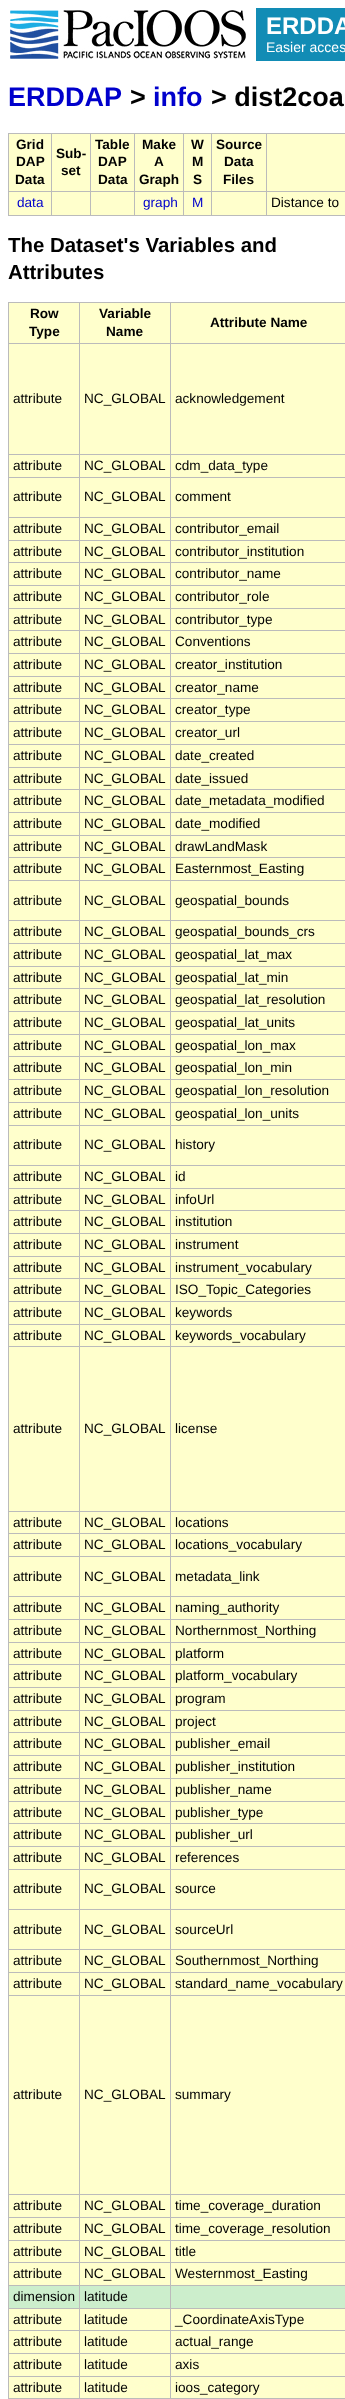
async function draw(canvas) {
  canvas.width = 345
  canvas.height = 2399
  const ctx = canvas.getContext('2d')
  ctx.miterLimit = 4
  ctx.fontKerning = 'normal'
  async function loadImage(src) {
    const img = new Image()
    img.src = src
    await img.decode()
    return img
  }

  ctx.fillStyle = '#fff'
  ctx.fillRect(0, 0, 345, 2399)
  ctx.fillStyle = '#128cb5'
  ctx.fillRect(256, 8, 89, 53)
  ctx.drawImage(await loadImage('image0.png'), 10, 10, 236, 49)
  ctx.font = 'bold 24px Liberation Sans'
  ctx.fillStyle = '#fff'
  ctx.fillText('ERDDA', 266, 34)
  ctx.font = '14px Liberation Sans'
  ctx.fillText('Easier acces', 266, 52)
  ctx.font = 'bold 27px Liberation Sans'
  ctx.fillStyle = '#00c'
  ctx.fillText('ERDDAP', 8, 106)
  ctx.fillStyle = '#000'
  ctx.fillText('>', 130, 106)
  ctx.fillStyle = '#00c'
  ctx.fillText('info', 153, 106)
  ctx.fillStyle = '#000'
  ctx.fillText('> dist2coa', 211, 106)
  ctx.fillStyle = '#ffc'
  ctx.fillRect(9, 134, 336, 81)
  ctx.fillStyle = '#bbb'
  ctx.fillRect(8, 133, 337, 1)
  ctx.fillRect(8, 215, 337, 1)
  ctx.fillRect(8, 133, 1, 83)
  ctx.font = 'bold 13.6px Liberation Sans'
  ctx.fillStyle = '#000'
  ctx.fillText('Grid', 16, 149)
  ctx.fillText('DAP', 16, 166)
  ctx.fillText('Data', 15, 184)
  ctx.fillStyle = '#bbb'
  ctx.fillRect(266, 191, 79, 1)
  ctx.fillRect(266, 191, 1, 25)
  ctx.fillRect(211, 191, 56, 1)
  ctx.fillRect(211, 191, 1, 25)
  ctx.fillRect(183, 191, 29, 1)
  ctx.fillRect(183, 191, 1, 25)
  ctx.fillRect(134, 191, 50, 1)
  ctx.fillRect(134, 191, 1, 25)
  ctx.fillRect(90, 191, 45, 1)
  ctx.fillRect(90, 191, 1, 25)
  ctx.fillRect(51, 191, 40, 1)
  ctx.fillRect(51, 191, 1, 25)
  ctx.fillRect(8, 191, 44, 1)
  ctx.fillRect(51, 133, 1, 59)
  ctx.fillStyle = '#000'
  ctx.fillText('Sub-', 56, 158)
  ctx.fillText('set', 61, 175)
  ctx.fillStyle = '#bbb'
  ctx.fillRect(90, 133, 1, 59)
  ctx.fillStyle = '#000'
  ctx.fillText('Table', 95, 149)
  ctx.fillText('DAP', 98, 166)
  ctx.fillText('Data', 98, 184)
  ctx.fillStyle = '#bbb'
  ctx.fillRect(134, 133, 1, 59)
  ctx.fillStyle = '#000'
  ctx.fillText('Make', 142, 149)
  ctx.fillText('A', 154, 166)
  ctx.fillText('Graph', 139, 184)
  ctx.fillStyle = '#bbb'
  ctx.fillRect(183, 133, 1, 59)
  ctx.fillStyle = '#000'
  ctx.fillText('W', 191, 149)
  ctx.fillText('M', 192, 166)
  ctx.fillText('S', 193, 184)
  ctx.fillStyle = '#bbb'
  ctx.fillRect(211, 133, 1, 59)
  ctx.fillStyle = '#000'
  ctx.fillText('Source', 216, 149)
  ctx.fillText('Data', 224, 166)
  ctx.fillText('Files', 223, 184)
  ctx.fillStyle = '#bbb'
  ctx.fillRect(266, 133, 1, 59)
  ctx.font = '13.6px Liberation Sans'
  ctx.fillStyle = '#00c'
  ctx.fillText('data', 17, 207)
  ctx.fillText('graph', 143, 207)
  ctx.fillText('M', 192, 207)
  ctx.fillStyle = '#000'
  ctx.fillText('Distance to', 271, 207)
  ctx.font = 'bold 20.4px Liberation Sans'
  ctx.fillText('The Dataset\'s Variables and', 8, 252)
  ctx.fillText('Attributes', 8, 279)
  ctx.fillStyle = '#ffc'
  ctx.fillRect(9, 303, 336, 2095)
  ctx.fillStyle = '#bbb'
  ctx.fillRect(8, 302, 337, 1)
  ctx.fillRect(8, 302, 1, 2097)
  ctx.font = 'bold 13.6px Liberation Sans'
  ctx.fillStyle = '#000'
  ctx.fillText('Row', 30, 318)
  ctx.fillText('Type', 29, 336)
  ctx.fillStyle = '#bbb'
  ctx.fillRect(170, 343, 175, 1)
  ctx.fillRect(170, 454, 175, 1)
  ctx.fillRect(170, 477, 175, 1)
  ctx.fillRect(170, 517, 175, 1)
  ctx.fillRect(170, 540, 175, 1)
  ctx.fillRect(170, 562, 175, 1)
  ctx.fillRect(170, 585, 175, 1)
  ctx.fillRect(170, 608, 175, 1)
  ctx.fillRect(170, 630, 175, 1)
  ctx.fillRect(170, 653, 175, 1)
  ctx.fillRect(170, 676, 175, 1)
  ctx.fillRect(170, 698, 175, 1)
  ctx.fillRect(170, 721, 175, 1)
  ctx.fillRect(170, 744, 175, 1)
  ctx.fillRect(170, 767, 175, 1)
  ctx.fillRect(170, 789, 175, 1)
  ctx.fillRect(170, 812, 175, 1)
  ctx.fillRect(170, 835, 175, 1)
  ctx.fillRect(170, 857, 175, 1)
  ctx.fillRect(170, 880, 175, 1)
  ctx.fillRect(170, 920, 175, 1)
  ctx.fillRect(170, 943, 175, 1)
  ctx.fillRect(170, 966, 175, 1)
  ctx.fillRect(170, 988, 175, 1)
  ctx.fillRect(170, 1011, 175, 1)
  ctx.fillRect(170, 1034, 175, 1)
  ctx.fillRect(170, 1056, 175, 1)
  ctx.fillRect(170, 1079, 175, 1)
  ctx.fillRect(170, 1102, 175, 1)
  ctx.fillRect(170, 1125, 175, 1)
  ctx.fillRect(170, 1165, 175, 1)
  ctx.fillRect(170, 1188, 175, 1)
  ctx.fillRect(170, 1210, 175, 1)
  ctx.fillRect(170, 1233, 175, 1)
  ctx.fillRect(170, 1256, 175, 1)
  ctx.fillRect(170, 1278, 175, 1)
  ctx.fillRect(170, 1301, 175, 1)
  ctx.fillRect(170, 1324, 175, 1)
  ctx.fillRect(170, 1346, 175, 1)
  ctx.fillRect(170, 1511, 175, 1)
  ctx.fillRect(170, 1533, 175, 1)
  ctx.fillRect(170, 1556, 175, 1)
  ctx.fillRect(170, 1596, 175, 1)
  ctx.fillRect(170, 1619, 175, 1)
  ctx.fillRect(170, 1642, 175, 1)
  ctx.fillRect(170, 1664, 175, 1)
  ctx.fillRect(170, 1687, 175, 1)
  ctx.fillRect(170, 1710, 175, 1)
  ctx.fillRect(170, 1732, 175, 1)
  ctx.fillRect(170, 1755, 175, 1)
  ctx.fillRect(170, 1778, 175, 1)
  ctx.fillRect(170, 1801, 175, 1)
  ctx.fillRect(170, 1823, 175, 1)
  ctx.fillRect(170, 1846, 175, 1)
  ctx.fillRect(170, 1869, 175, 1)
  ctx.fillRect(170, 1909, 175, 1)
  ctx.fillRect(170, 1949, 175, 1)
  ctx.fillRect(170, 1972, 175, 1)
  ctx.fillRect(170, 1995, 175, 1)
  ctx.fillRect(170, 2194, 175, 1)
  ctx.fillRect(170, 2217, 175, 1)
  ctx.fillRect(170, 2240, 175, 1)
  ctx.fillRect(170, 2262, 175, 1)
  ctx.fillRect(170, 2285, 175, 1)
  ctx.fillStyle = '#cec'
  ctx.fillRect(9, 2286, 336, 22)
  ctx.fillStyle = '#bbb'
  ctx.fillRect(170, 2308, 175, 1)
  ctx.fillRect(170, 2330, 175, 1)
  ctx.fillRect(170, 2353, 175, 1)
  ctx.fillRect(170, 2376, 175, 1)
  ctx.fillRect(8, 2398, 337, 1)
  ctx.fillRect(170, 2376, 1, 23)
  ctx.fillRect(79, 2376, 92, 1)
  ctx.fillRect(170, 2353, 1, 24)
  ctx.fillRect(79, 2353, 92, 1)
  ctx.fillRect(170, 2330, 1, 24)
  ctx.fillRect(79, 2330, 92, 1)
  ctx.fillRect(170, 2308, 1, 23)
  ctx.fillRect(79, 2308, 92, 1)
  ctx.fillRect(170, 2285, 1, 24)
  ctx.fillRect(79, 2285, 92, 1)
  ctx.fillRect(170, 2262, 1, 24)
  ctx.fillRect(79, 2262, 92, 1)
  ctx.fillRect(170, 2240, 1, 23)
  ctx.fillRect(79, 2240, 92, 1)
  ctx.fillRect(170, 2217, 1, 24)
  ctx.fillRect(79, 2217, 92, 1)
  ctx.fillRect(170, 2194, 1, 24)
  ctx.fillRect(79, 2194, 92, 1)
  ctx.fillRect(170, 1995, 1, 200)
  ctx.fillRect(79, 1995, 92, 1)
  ctx.fillRect(170, 1972, 1, 24)
  ctx.fillRect(79, 1972, 92, 1)
  ctx.fillRect(170, 1949, 1, 24)
  ctx.fillRect(79, 1949, 92, 1)
  ctx.fillRect(170, 1909, 1, 41)
  ctx.fillRect(79, 1909, 92, 1)
  ctx.fillRect(170, 1869, 1, 41)
  ctx.fillRect(79, 1869, 92, 1)
  ctx.fillRect(170, 1846, 1, 24)
  ctx.fillRect(79, 1846, 92, 1)
  ctx.fillRect(170, 1823, 1, 24)
  ctx.fillRect(79, 1823, 92, 1)
  ctx.fillRect(170, 1801, 1, 23)
  ctx.fillRect(79, 1801, 92, 1)
  ctx.fillRect(170, 1778, 1, 24)
  ctx.fillRect(79, 1778, 92, 1)
  ctx.fillRect(170, 1755, 1, 24)
  ctx.fillRect(79, 1755, 92, 1)
  ctx.fillRect(170, 1732, 1, 24)
  ctx.fillRect(79, 1732, 92, 1)
  ctx.fillRect(170, 1710, 1, 23)
  ctx.fillRect(79, 1710, 92, 1)
  ctx.fillRect(170, 1687, 1, 24)
  ctx.fillRect(79, 1687, 92, 1)
  ctx.fillRect(170, 1664, 1, 24)
  ctx.fillRect(79, 1664, 92, 1)
  ctx.fillRect(170, 1642, 1, 23)
  ctx.fillRect(79, 1642, 92, 1)
  ctx.fillRect(170, 1619, 1, 24)
  ctx.fillRect(79, 1619, 92, 1)
  ctx.fillRect(170, 1596, 1, 24)
  ctx.fillRect(79, 1596, 92, 1)
  ctx.fillRect(170, 1556, 1, 41)
  ctx.fillRect(79, 1556, 92, 1)
  ctx.fillRect(170, 1533, 1, 24)
  ctx.fillRect(79, 1533, 92, 1)
  ctx.fillRect(170, 1511, 1, 23)
  ctx.fillRect(79, 1511, 92, 1)
  ctx.fillRect(170, 1346, 1, 166)
  ctx.fillRect(79, 1346, 92, 1)
  ctx.fillRect(170, 1324, 1, 23)
  ctx.fillRect(79, 1324, 92, 1)
  ctx.fillRect(170, 1301, 1, 24)
  ctx.fillRect(79, 1301, 92, 1)
  ctx.fillRect(170, 1278, 1, 24)
  ctx.fillRect(79, 1278, 92, 1)
  ctx.fillRect(170, 1256, 1, 23)
  ctx.fillRect(79, 1256, 92, 1)
  ctx.fillRect(170, 1233, 1, 24)
  ctx.fillRect(79, 1233, 92, 1)
  ctx.fillRect(170, 1210, 1, 24)
  ctx.fillRect(79, 1210, 92, 1)
  ctx.fillRect(170, 1188, 1, 23)
  ctx.fillRect(79, 1188, 92, 1)
  ctx.fillRect(170, 1165, 1, 24)
  ctx.fillRect(79, 1165, 92, 1)
  ctx.fillRect(170, 1125, 1, 41)
  ctx.fillRect(79, 1125, 92, 1)
  ctx.fillRect(170, 1102, 1, 24)
  ctx.fillRect(79, 1102, 92, 1)
  ctx.fillRect(170, 1079, 1, 24)
  ctx.fillRect(79, 1079, 92, 1)
  ctx.fillRect(170, 1056, 1, 24)
  ctx.fillRect(79, 1056, 92, 1)
  ctx.fillRect(170, 1034, 1, 23)
  ctx.fillRect(79, 1034, 92, 1)
  ctx.fillRect(170, 1011, 1, 24)
  ctx.fillRect(79, 1011, 92, 1)
  ctx.fillRect(170, 988, 1, 24)
  ctx.fillRect(79, 988, 92, 1)
  ctx.fillRect(170, 966, 1, 23)
  ctx.fillRect(79, 966, 92, 1)
  ctx.fillRect(170, 943, 1, 24)
  ctx.fillRect(79, 943, 92, 1)
  ctx.fillRect(170, 920, 1, 24)
  ctx.fillRect(79, 920, 92, 1)
  ctx.fillRect(170, 880, 1, 41)
  ctx.fillRect(79, 880, 92, 1)
  ctx.fillRect(170, 857, 1, 24)
  ctx.fillRect(79, 857, 92, 1)
  ctx.fillRect(170, 835, 1, 23)
  ctx.fillRect(79, 835, 92, 1)
  ctx.fillRect(170, 812, 1, 24)
  ctx.fillRect(79, 812, 92, 1)
  ctx.fillRect(170, 789, 1, 24)
  ctx.fillRect(79, 789, 92, 1)
  ctx.fillRect(170, 767, 1, 23)
  ctx.fillRect(79, 767, 92, 1)
  ctx.fillRect(170, 744, 1, 24)
  ctx.fillRect(79, 744, 92, 1)
  ctx.fillRect(170, 721, 1, 24)
  ctx.fillRect(79, 721, 92, 1)
  ctx.fillRect(170, 698, 1, 24)
  ctx.fillRect(79, 698, 92, 1)
  ctx.fillRect(170, 676, 1, 23)
  ctx.fillRect(79, 676, 92, 1)
  ctx.fillRect(170, 653, 1, 24)
  ctx.fillRect(79, 653, 92, 1)
  ctx.fillRect(170, 630, 1, 24)
  ctx.fillRect(79, 630, 92, 1)
  ctx.fillRect(170, 608, 1, 23)
  ctx.fillRect(79, 608, 92, 1)
  ctx.fillRect(170, 585, 1, 24)
  ctx.fillRect(79, 585, 92, 1)
  ctx.fillRect(170, 562, 1, 24)
  ctx.fillRect(79, 562, 92, 1)
  ctx.fillRect(170, 540, 1, 23)
  ctx.fillRect(79, 540, 92, 1)
  ctx.fillRect(170, 517, 1, 24)
  ctx.fillRect(79, 517, 92, 1)
  ctx.fillRect(170, 477, 1, 41)
  ctx.fillRect(79, 477, 92, 1)
  ctx.fillRect(170, 454, 1, 24)
  ctx.fillRect(79, 454, 92, 1)
  ctx.fillRect(170, 343, 1, 112)
  ctx.fillRect(79, 343, 92, 1)
  ctx.fillRect(79, 2376, 1, 23)
  ctx.fillRect(8, 2376, 72, 1)
  ctx.fillRect(79, 2353, 1, 24)
  ctx.fillRect(8, 2353, 72, 1)
  ctx.fillRect(79, 2330, 1, 24)
  ctx.fillRect(8, 2330, 72, 1)
  ctx.fillRect(79, 2308, 1, 23)
  ctx.fillRect(8, 2308, 72, 1)
  ctx.fillRect(79, 2285, 1, 24)
  ctx.fillRect(8, 2285, 72, 1)
  ctx.fillRect(79, 2262, 1, 24)
  ctx.fillRect(8, 2262, 72, 1)
  ctx.fillRect(79, 2240, 1, 23)
  ctx.fillRect(8, 2240, 72, 1)
  ctx.fillRect(79, 2217, 1, 24)
  ctx.fillRect(8, 2217, 72, 1)
  ctx.fillRect(79, 2194, 1, 24)
  ctx.fillRect(8, 2194, 72, 1)
  ctx.fillRect(79, 1995, 1, 200)
  ctx.fillRect(8, 1995, 72, 1)
  ctx.fillRect(79, 1972, 1, 24)
  ctx.fillRect(8, 1972, 72, 1)
  ctx.fillRect(79, 1949, 1, 24)
  ctx.fillRect(8, 1949, 72, 1)
  ctx.fillRect(79, 1909, 1, 41)
  ctx.fillRect(8, 1909, 72, 1)
  ctx.fillRect(79, 1869, 1, 41)
  ctx.fillRect(8, 1869, 72, 1)
  ctx.fillRect(79, 1846, 1, 24)
  ctx.fillRect(8, 1846, 72, 1)
  ctx.fillRect(79, 1823, 1, 24)
  ctx.fillRect(8, 1823, 72, 1)
  ctx.fillRect(79, 1801, 1, 23)
  ctx.fillRect(8, 1801, 72, 1)
  ctx.fillRect(79, 1778, 1, 24)
  ctx.fillRect(8, 1778, 72, 1)
  ctx.fillRect(79, 1755, 1, 24)
  ctx.fillRect(8, 1755, 72, 1)
  ctx.fillRect(79, 1732, 1, 24)
  ctx.fillRect(8, 1732, 72, 1)
  ctx.fillRect(79, 1710, 1, 23)
  ctx.fillRect(8, 1710, 72, 1)
  ctx.fillRect(79, 1687, 1, 24)
  ctx.fillRect(8, 1687, 72, 1)
  ctx.fillRect(79, 1664, 1, 24)
  ctx.fillRect(8, 1664, 72, 1)
  ctx.fillRect(79, 1642, 1, 23)
  ctx.fillRect(8, 1642, 72, 1)
  ctx.fillRect(79, 1619, 1, 24)
  ctx.fillRect(8, 1619, 72, 1)
  ctx.fillRect(79, 1596, 1, 24)
  ctx.fillRect(8, 1596, 72, 1)
  ctx.fillRect(79, 1556, 1, 41)
  ctx.fillRect(8, 1556, 72, 1)
  ctx.fillRect(79, 1533, 1, 24)
  ctx.fillRect(8, 1533, 72, 1)
  ctx.fillRect(79, 1511, 1, 23)
  ctx.fillRect(8, 1511, 72, 1)
  ctx.fillRect(79, 1346, 1, 166)
  ctx.fillRect(8, 1346, 72, 1)
  ctx.fillRect(79, 1324, 1, 23)
  ctx.fillRect(8, 1324, 72, 1)
  ctx.fillRect(79, 1301, 1, 24)
  ctx.fillRect(8, 1301, 72, 1)
  ctx.fillRect(79, 1278, 1, 24)
  ctx.fillRect(8, 1278, 72, 1)
  ctx.fillRect(79, 1256, 1, 23)
  ctx.fillRect(8, 1256, 72, 1)
  ctx.fillRect(79, 1233, 1, 24)
  ctx.fillRect(8, 1233, 72, 1)
  ctx.fillRect(79, 1210, 1, 24)
  ctx.fillRect(8, 1210, 72, 1)
  ctx.fillRect(79, 1188, 1, 23)
  ctx.fillRect(8, 1188, 72, 1)
  ctx.fillRect(79, 1165, 1, 24)
  ctx.fillRect(8, 1165, 72, 1)
  ctx.fillRect(79, 1125, 1, 41)
  ctx.fillRect(8, 1125, 72, 1)
  ctx.fillRect(79, 1102, 1, 24)
  ctx.fillRect(8, 1102, 72, 1)
  ctx.fillRect(79, 1079, 1, 24)
  ctx.fillRect(8, 1079, 72, 1)
  ctx.fillRect(79, 1056, 1, 24)
  ctx.fillRect(8, 1056, 72, 1)
  ctx.fillRect(79, 1034, 1, 23)
  ctx.fillRect(8, 1034, 72, 1)
  ctx.fillRect(79, 1011, 1, 24)
  ctx.fillRect(8, 1011, 72, 1)
  ctx.fillRect(79, 988, 1, 24)
  ctx.fillRect(8, 988, 72, 1)
  ctx.fillRect(79, 966, 1, 23)
  ctx.fillRect(8, 966, 72, 1)
  ctx.fillRect(79, 943, 1, 24)
  ctx.fillRect(8, 943, 72, 1)
  ctx.fillRect(79, 920, 1, 24)
  ctx.fillRect(8, 920, 72, 1)
  ctx.fillRect(79, 880, 1, 41)
  ctx.fillRect(8, 880, 72, 1)
  ctx.fillRect(79, 857, 1, 24)
  ctx.fillRect(8, 857, 72, 1)
  ctx.fillRect(79, 835, 1, 23)
  ctx.fillRect(8, 835, 72, 1)
  ctx.fillRect(79, 812, 1, 24)
  ctx.fillRect(8, 812, 72, 1)
  ctx.fillRect(79, 789, 1, 24)
  ctx.fillRect(8, 789, 72, 1)
  ctx.fillRect(79, 767, 1, 23)
  ctx.fillRect(8, 767, 72, 1)
  ctx.fillRect(79, 744, 1, 24)
  ctx.fillRect(8, 744, 72, 1)
  ctx.fillRect(79, 721, 1, 24)
  ctx.fillRect(8, 721, 72, 1)
  ctx.fillRect(79, 698, 1, 24)
  ctx.fillRect(8, 698, 72, 1)
  ctx.fillRect(79, 676, 1, 23)
  ctx.fillRect(8, 676, 72, 1)
  ctx.fillRect(79, 653, 1, 24)
  ctx.fillRect(8, 653, 72, 1)
  ctx.fillRect(79, 630, 1, 24)
  ctx.fillRect(8, 630, 72, 1)
  ctx.fillRect(79, 608, 1, 23)
  ctx.fillRect(8, 608, 72, 1)
  ctx.fillRect(79, 585, 1, 24)
  ctx.fillRect(8, 585, 72, 1)
  ctx.fillRect(79, 562, 1, 24)
  ctx.fillRect(8, 562, 72, 1)
  ctx.fillRect(79, 540, 1, 23)
  ctx.fillRect(8, 540, 72, 1)
  ctx.fillRect(79, 517, 1, 24)
  ctx.fillRect(8, 517, 72, 1)
  ctx.fillRect(79, 477, 1, 41)
  ctx.fillRect(8, 477, 72, 1)
  ctx.fillRect(79, 454, 1, 24)
  ctx.fillRect(8, 454, 72, 1)
  ctx.fillRect(79, 343, 1, 112)
  ctx.fillRect(8, 343, 72, 1)
  ctx.fillRect(79, 302, 1, 42)
  ctx.fillStyle = '#000'
  ctx.fillText('Variable', 99, 318)
  ctx.fillText('Name', 106, 336)
  ctx.fillStyle = '#bbb'
  ctx.fillRect(170, 302, 1, 42)
  ctx.fillStyle = '#000'
  ctx.fillText('Attribute Name', 210, 327)
  ctx.font = '13.6px Liberation Sans'
  ctx.fillText('attribute', 13, 403)
  ctx.fillText('NC_GLOBAL', 84, 403)
  ctx.fillText('acknowledgement', 175, 403)
  ctx.fillText('attribute', 13, 470)
  ctx.fillText('NC_GLOBAL', 84, 470)
  ctx.fillText('cdm_data_type', 175, 470)
  ctx.fillText('attribute', 13, 501)
  ctx.fillText('NC_GLOBAL', 84, 501)
  ctx.fillText('comment', 175, 501)
  ctx.fillText('attribute', 13, 533)
  ctx.fillText('NC_GLOBAL', 84, 533)
  ctx.fillText('contributor_email', 175, 533)
  ctx.fillText('attribute', 13, 556)
  ctx.fillText('NC_GLOBAL', 84, 556)
  ctx.fillText('contributor_institution', 175, 556)
  ctx.fillText('attribute', 13, 578)
  ctx.fillText('NC_GLOBAL', 84, 578)
  ctx.fillText('contributor_name', 175, 578)
  ctx.fillText('attribute', 13, 601)
  ctx.fillText('NC_GLOBAL', 84, 601)
  ctx.fillText('contributor_role', 175, 601)
  ctx.fillText('attribute', 13, 624)
  ctx.fillText('NC_GLOBAL', 84, 624)
  ctx.fillText('contributor_type', 175, 624)
  ctx.fillText('attribute', 13, 646)
  ctx.fillText('NC_GLOBAL', 84, 646)
  ctx.fillText('Conventions', 175, 646)
  ctx.fillText('attribute', 13, 669)
  ctx.fillText('NC_GLOBAL', 84, 669)
  ctx.fillText('creator_institution', 175, 669)
  ctx.fillText('attribute', 13, 692)
  ctx.fillText('NC_GLOBAL', 84, 692)
  ctx.fillText('creator_name', 175, 692)
  ctx.fillText('attribute', 13, 714)
  ctx.fillText('NC_GLOBAL', 84, 714)
  ctx.fillText('creator_type', 175, 714)
  ctx.fillText('attribute', 13, 737)
  ctx.fillText('NC_GLOBAL', 84, 737)
  ctx.fillText('creator_url', 175, 737)
  ctx.fillText('attribute', 13, 760)
  ctx.fillText('NC_GLOBAL', 84, 760)
  ctx.fillText('date_created', 175, 760)
  ctx.fillText('attribute', 13, 783)
  ctx.fillText('NC_GLOBAL', 84, 783)
  ctx.fillText('date_issued', 175, 783)
  ctx.fillText('attribute', 13, 805)
  ctx.fillText('NC_GLOBAL', 84, 805)
  ctx.fillText('date_metadata_modified', 175, 805)
  ctx.fillText('attribute', 13, 828)
  ctx.fillText('NC_GLOBAL', 84, 828)
  ctx.fillText('date_modified', 175, 828)
  ctx.fillText('attribute', 13, 851)
  ctx.fillText('NC_GLOBAL', 84, 851)
  ctx.fillText('drawLandMask', 175, 851)
  ctx.fillText('attribute', 13, 873)
  ctx.fillText('NC_GLOBAL', 84, 873)
  ctx.fillText('Easternmost_Easting', 175, 873)
  ctx.fillText('attribute', 13, 905)
  ctx.fillText('NC_GLOBAL', 84, 905)
  ctx.fillText('geospatial_bounds', 175, 905)
  ctx.fillText('attribute', 13, 936)
  ctx.fillText('NC_GLOBAL', 84, 936)
  ctx.fillText('geospatial_bounds_crs', 175, 936)
  ctx.fillText('attribute', 13, 959)
  ctx.fillText('NC_GLOBAL', 84, 959)
  ctx.fillText('geospatial_lat_max', 175, 959)
  ctx.fillText('attribute', 13, 982)
  ctx.fillText('NC_GLOBAL', 84, 982)
  ctx.fillText('geospatial_lat_min', 175, 982)
  ctx.fillText('attribute', 13, 1004)
  ctx.fillText('NC_GLOBAL', 84, 1004)
  ctx.fillText('geospatial_lat_resolution', 175, 1004)
  ctx.fillText('attribute', 13, 1027)
  ctx.fillText('NC_GLOBAL', 84, 1027)
  ctx.fillText('geospatial_lat_units', 175, 1027)
  ctx.fillText('attribute', 13, 1050)
  ctx.fillText('NC_GLOBAL', 84, 1050)
  ctx.fillText('geospatial_lon_max', 175, 1050)
  ctx.fillText('attribute', 13, 1072)
  ctx.fillText('NC_GLOBAL', 84, 1072)
  ctx.fillText('geospatial_lon_min', 175, 1072)
  ctx.fillText('attribute', 13, 1095)
  ctx.fillText('NC_GLOBAL', 84, 1095)
  ctx.fillText('geospatial_lon_resolution', 175, 1095)
  ctx.fillText('attribute', 13, 1118)
  ctx.fillText('NC_GLOBAL', 84, 1118)
  ctx.fillText('geospatial_lon_units', 175, 1118)
  ctx.fillText('attribute', 13, 1149)
  ctx.fillText('NC_GLOBAL', 84, 1149)
  ctx.fillText('history', 175, 1149)
  ctx.fillText('attribute', 13, 1181)
  ctx.fillText('NC_GLOBAL', 84, 1181)
  ctx.fillText('id', 175, 1181)
  ctx.fillText('attribute', 13, 1204)
  ctx.fillText('NC_GLOBAL', 84, 1204)
  ctx.fillText('infoUrl', 175, 1204)
  ctx.fillText('attribute', 13, 1226)
  ctx.fillText('NC_GLOBAL', 84, 1226)
  ctx.fillText('institution', 175, 1226)
  ctx.fillText('attribute', 13, 1249)
  ctx.fillText('NC_GLOBAL', 84, 1249)
  ctx.fillText('instrument', 175, 1249)
  ctx.fillText('attribute', 13, 1272)
  ctx.fillText('NC_GLOBAL', 84, 1272)
  ctx.fillText('instrument_vocabulary', 175, 1272)
  ctx.fillText('attribute', 13, 1294)
  ctx.fillText('NC_GLOBAL', 84, 1294)
  ctx.fillText('ISO_Topic_Categories', 175, 1294)
  ctx.fillText('attribute', 13, 1317)
  ctx.fillText('NC_GLOBAL', 84, 1317)
  ctx.fillText('keywords', 175, 1317)
  ctx.fillText('attribute', 13, 1340)
  ctx.fillText('NC_GLOBAL', 84, 1340)
  ctx.fillText('keywords_vocabulary', 175, 1340)
  ctx.fillText('attribute', 13, 1433)
  ctx.fillText('NC_GLOBAL', 84, 1433)
  ctx.fillText('license', 175, 1433)
  ctx.fillText('attribute', 13, 1527)
  ctx.fillText('NC_GLOBAL', 84, 1527)
  ctx.fillText('locations', 175, 1527)
  ctx.fillText('attribute', 13, 1549)
  ctx.fillText('NC_GLOBAL', 84, 1549)
  ctx.fillText('locations_vocabulary', 175, 1549)
  ctx.fillText('attribute', 13, 1581)
  ctx.fillText('NC_GLOBAL', 84, 1581)
  ctx.fillText('metadata_link', 175, 1581)
  ctx.fillText('attribute', 13, 1612)
  ctx.fillText('NC_GLOBAL', 84, 1612)
  ctx.fillText('naming_authority', 175, 1612)
  ctx.fillText('attribute', 13, 1635)
  ctx.fillText('NC_GLOBAL', 84, 1635)
  ctx.fillText('Northernmost_Northing', 175, 1635)
  ctx.fillText('attribute', 13, 1658)
  ctx.fillText('NC_GLOBAL', 84, 1658)
  ctx.fillText('platform', 175, 1658)
  ctx.fillText('attribute', 13, 1680)
  ctx.fillText('NC_GLOBAL', 84, 1680)
  ctx.fillText('platform_vocabulary', 175, 1680)
  ctx.fillText('attribute', 13, 1703)
  ctx.fillText('NC_GLOBAL', 84, 1703)
  ctx.fillText('program', 175, 1703)
  ctx.fillText('attribute', 13, 1726)
  ctx.fillText('NC_GLOBAL', 84, 1726)
  ctx.fillText('project', 175, 1726)
  ctx.fillText('attribute', 13, 1748)
  ctx.fillText('NC_GLOBAL', 84, 1748)
  ctx.fillText('publisher_email', 175, 1748)
  ctx.fillText('attribute', 13, 1771)
  ctx.fillText('NC_GLOBAL', 84, 1771)
  ctx.fillText('publisher_institution', 175, 1771)
  ctx.fillText('attribute', 13, 1794)
  ctx.fillText('NC_GLOBAL', 84, 1794)
  ctx.fillText('publisher_name', 175, 1794)
  ctx.fillText('attribute', 13, 1817)
  ctx.fillText('NC_GLOBAL', 84, 1817)
  ctx.fillText('publisher_type', 175, 1817)
  ctx.fillText('attribute', 13, 1839)
  ctx.fillText('NC_GLOBAL', 84, 1839)
  ctx.fillText('publisher_url', 175, 1839)
  ctx.fillText('attribute', 13, 1862)
  ctx.fillText('NC_GLOBAL', 84, 1862)
  ctx.fillText('references', 175, 1862)
  ctx.fillText('attribute', 13, 1893)
  ctx.fillText('NC_GLOBAL', 84, 1893)
  ctx.fillText('source', 175, 1893)
  ctx.fillText('attribute', 13, 1934)
  ctx.fillText('NC_GLOBAL', 84, 1934)
  ctx.fillText('sourceUrl', 175, 1934)
  ctx.fillText('attribute', 13, 1965)
  ctx.fillText('NC_GLOBAL', 84, 1965)
  ctx.fillText('Southernmost_Northing', 175, 1965)
  ctx.fillText('attribute', 13, 1988)
  ctx.fillText('NC_GLOBAL', 84, 1988)
  ctx.fillText('standard_name_vocabulary', 175, 1988)
  ctx.fillText('attribute', 13, 2099)
  ctx.fillText('NC_GLOBAL', 84, 2099)
  ctx.fillText('summary', 175, 2099)
  ctx.fillText('attribute', 13, 2210)
  ctx.fillText('NC_GLOBAL', 84, 2210)
  ctx.fillText('time_coverage_duration', 175, 2210)
  ctx.fillText('attribute', 13, 2233)
  ctx.fillText('NC_GLOBAL', 84, 2233)
  ctx.fillText('time_coverage_resolution', 175, 2233)
  ctx.fillText('attribute', 13, 2256)
  ctx.fillText('NC_GLOBAL', 84, 2256)
  ctx.fillText('title', 175, 2256)
  ctx.fillText('attribute', 13, 2278)
  ctx.fillText('NC_GLOBAL', 84, 2278)
  ctx.fillText('Westernmost_Easting', 175, 2278)
  ctx.fillText('dimension', 13, 2301)
  ctx.fillText('latitude', 84, 2301)
  ctx.fillText('attribute', 13, 2324)
  ctx.fillText('latitude', 84, 2324)
  ctx.fillText('_CoordinateAxisType', 175, 2324)
  ctx.fillText('attribute', 13, 2346)
  ctx.fillText('latitude', 84, 2346)
  ctx.fillText('actual_range', 175, 2346)
  ctx.fillText('attribute', 13, 2369)
  ctx.fillText('latitude', 84, 2369)
  ctx.fillText('axis', 175, 2369)
  ctx.fillText('attribute', 13, 2392)
  ctx.fillText('latitude', 84, 2392)
  ctx.fillText('ioos_category', 175, 2392)
}

draw(document.querySelector('canvas'))
